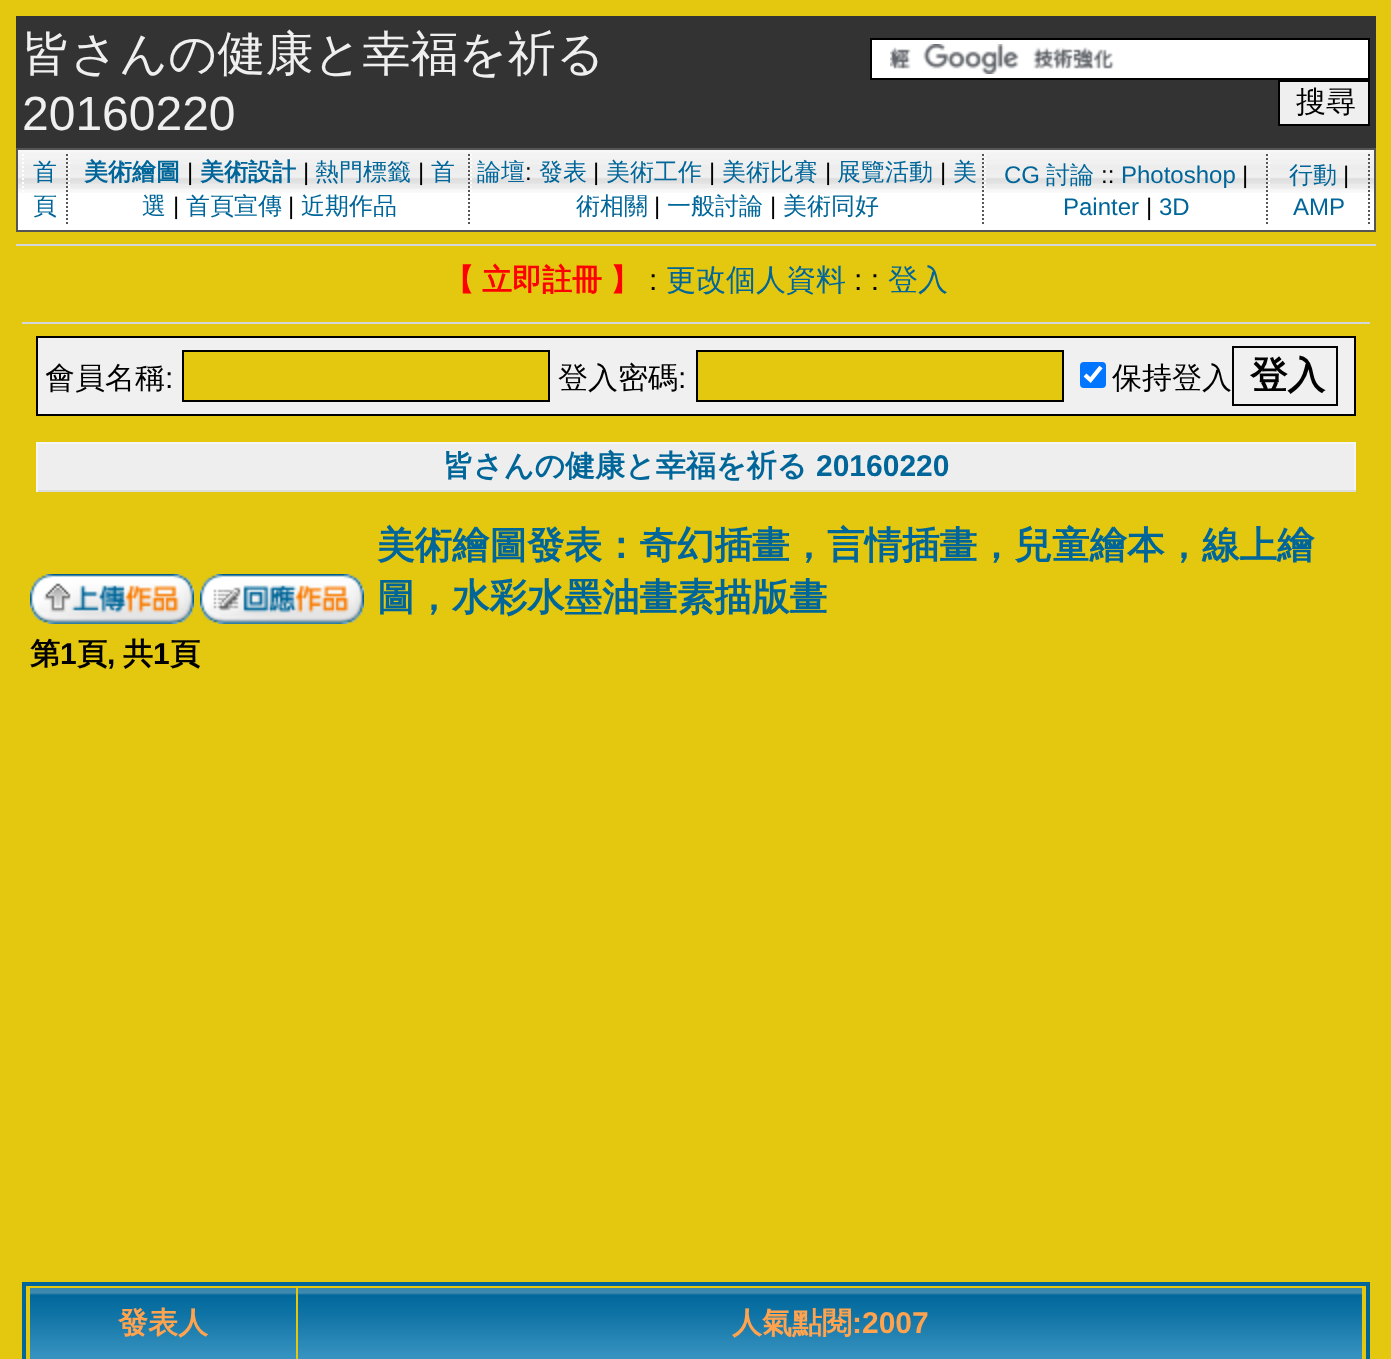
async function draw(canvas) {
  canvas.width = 1391
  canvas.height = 1359
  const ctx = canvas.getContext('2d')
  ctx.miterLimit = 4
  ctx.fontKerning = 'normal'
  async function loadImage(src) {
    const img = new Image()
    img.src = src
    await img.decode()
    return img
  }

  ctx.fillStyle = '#e4c70f'
  ctx.fillRect(0, 0, 1391, 1359)
  ctx.fillStyle = '#333'
  ctx.fillRect(16, 16, 1360, 132)
  ctx.font = '500 48px WenQuanYi Zen Hei'
  ctx.fillStyle = '#efefef'
  ctx.fillText('皆さんの健康と幸福を祈る', 22, 70)
  ctx.font = '48px Liberation Sans'
  ctx.fillText('20160220', 22, 130)
  ctx.fillStyle = '#fff'
  ctx.fillRect(872, 40, 496, 38)
  ctx.drawImage(await loadImage('image0.png'), 890, 44, 224, 30)
  ctx.strokeStyle = '#000'
  ctx.lineWidth = 2
  ctx.strokeRect(871, 39, 498, 40)
  ctx.fillStyle = '#efefef'
  ctx.beginPath()
  ctx.rect(1279, 81, 90, 44)
  ctx.fill()
  ctx.stroke()
  ctx.font = '500 30px WenQuanYi Zen Hei'
  ctx.fillStyle = '#000'
  ctx.fillText('搜尋', 1296, 112)
  ctx.fillStyle = '#fff'
  ctx.fillRect(18, 193, 1356, 37)
  ctx.drawImage(await loadImage('image1.png'), 18, 150, 1356, 43)
  ctx.strokeStyle = '#555'
  ctx.strokeRect(17, 149, 1358, 82)
  ctx.beginPath()
  ctx.moveTo(67, 154)
  ctx.lineTo(67, 226)
  ctx.setLineDash([2, 2])
  ctx.stroke()
  ctx.beginPath()
  ctx.moveTo(23, 154)
  ctx.lineTo(23, 226)
  ctx.strokeStyle = '#fff'
  ctx.stroke()
  ctx.font = '500 24px WenQuanYi Zen Hei'
  ctx.fillStyle = '#069'
  ctx.fillText('首', 33, 180)
  ctx.fillText('頁', 33, 214)
  ctx.beginPath()
  ctx.moveTo(469, 154)
  ctx.lineTo(469, 226)
  ctx.strokeStyle = '#555'
  ctx.stroke()
  ctx.beginPath()
  ctx.moveTo(69, 154)
  ctx.lineTo(69, 226)
  ctx.strokeStyle = '#fff'
  ctx.stroke()
  ctx.font = 'bold 24px WenQuanYi Zen Hei'
  ctx.fillText('美術繪圖', 84, 180)
  ctx.font = '24px Liberation Sans'
  ctx.fillStyle = '#000'
  ctx.fillText('|', 187, 180)
  ctx.font = 'bold 24px WenQuanYi Zen Hei'
  ctx.fillStyle = '#069'
  ctx.fillText('美術設計', 200, 180)
  ctx.font = '24px Liberation Sans'
  ctx.fillStyle = '#000'
  ctx.fillText('|', 303, 180)
  ctx.font = '500 24px WenQuanYi Zen Hei'
  ctx.fillStyle = '#069'
  ctx.fillText('熱門標籤', 315, 180)
  ctx.font = '24px Liberation Sans'
  ctx.fillStyle = '#000'
  ctx.fillText('|', 418, 180)
  ctx.font = '500 24px WenQuanYi Zen Hei'
  ctx.fillStyle = '#069'
  ctx.fillText('首', 431, 180)
  ctx.fillText('選', 142, 214)
  ctx.font = '24px Liberation Sans'
  ctx.fillStyle = '#000'
  ctx.fillText('|', 173, 214)
  ctx.font = '500 24px WenQuanYi Zen Hei'
  ctx.fillStyle = '#069'
  ctx.fillText('首頁宣傳', 186, 214)
  ctx.font = '24px Liberation Sans'
  ctx.fillStyle = '#000'
  ctx.fillText('|', 288, 214)
  ctx.font = '500 24px WenQuanYi Zen Hei'
  ctx.fillStyle = '#069'
  ctx.fillText('近期作品', 301, 214)
  ctx.beginPath()
  ctx.moveTo(983, 154)
  ctx.lineTo(983, 226)
  ctx.strokeStyle = '#555'
  ctx.stroke()
  ctx.beginPath()
  ctx.moveTo(471, 154)
  ctx.lineTo(471, 226)
  ctx.strokeStyle = '#fff'
  ctx.stroke()
  ctx.fillText('論壇', 477, 180)
  ctx.font = '24px Liberation Sans'
  ctx.fillStyle = '#000'
  ctx.fillText(':', 525, 180)
  ctx.font = '500 24px WenQuanYi Zen Hei'
  ctx.fillStyle = '#069'
  ctx.fillText('發表', 539, 180)
  ctx.font = '24px Liberation Sans'
  ctx.fillStyle = '#000'
  ctx.fillText('|', 593, 180)
  ctx.font = '500 24px WenQuanYi Zen Hei'
  ctx.fillStyle = '#069'
  ctx.fillText('美術工作', 606, 180)
  ctx.font = '24px Liberation Sans'
  ctx.fillStyle = '#000'
  ctx.fillText('|', 709, 180)
  ctx.font = '500 24px WenQuanYi Zen Hei'
  ctx.fillStyle = '#069'
  ctx.fillText('美術比賽', 722, 180)
  ctx.font = '24px Liberation Sans'
  ctx.fillStyle = '#000'
  ctx.fillText('|', 825, 180)
  ctx.font = '500 24px WenQuanYi Zen Hei'
  ctx.fillStyle = '#069'
  ctx.fillText('展覽活動', 837, 180)
  ctx.font = '24px Liberation Sans'
  ctx.fillStyle = '#000'
  ctx.fillText('|', 940, 180)
  ctx.font = '500 24px WenQuanYi Zen Hei'
  ctx.fillStyle = '#069'
  ctx.fillText('美', 953, 180)
  ctx.fillText('術相關', 576, 214)
  ctx.font = '24px Liberation Sans'
  ctx.fillStyle = '#000'
  ctx.fillText('|', 654, 214)
  ctx.font = '500 24px WenQuanYi Zen Hei'
  ctx.fillStyle = '#069'
  ctx.fillText('一般討論', 667, 214)
  ctx.font = '24px Liberation Sans'
  ctx.fillStyle = '#000'
  ctx.fillText('|', 770, 214)
  ctx.font = '500 24px WenQuanYi Zen Hei'
  ctx.fillStyle = '#069'
  ctx.fillText('美術同好', 783, 214)
  ctx.beginPath()
  ctx.moveTo(1267, 154)
  ctx.lineTo(1267, 226)
  ctx.strokeStyle = '#555'
  ctx.stroke()
  ctx.beginPath()
  ctx.moveTo(985, 154)
  ctx.lineTo(985, 226)
  ctx.strokeStyle = '#fff'
  ctx.stroke()
  ctx.font = '24px Liberation Sans'
  ctx.fillText('CG', 1004, 183)
  ctx.font = '500 24px WenQuanYi Zen Hei'
  ctx.fillText('討論', 1046, 183)
  ctx.font = '24px Liberation Sans'
  ctx.fillStyle = '#000'
  ctx.fillText('::', 1101, 183)
  ctx.fillStyle = '#069'
  ctx.fillText('Photoshop', 1121, 183)
  ctx.fillStyle = '#000'
  ctx.fillText('|', 1242, 183)
  ctx.fillStyle = '#069'
  ctx.fillText('Painter', 1063, 215)
  ctx.fillStyle = '#000'
  ctx.fillText('|', 1146, 215)
  ctx.fillStyle = '#069'
  ctx.fillText('3D', 1159, 215)
  ctx.beginPath()
  ctx.moveTo(1369, 154)
  ctx.lineTo(1369, 226)
  ctx.strokeStyle = '#555'
  ctx.stroke()
  ctx.beginPath()
  ctx.moveTo(1269, 154)
  ctx.lineTo(1269, 226)
  ctx.strokeStyle = '#fff'
  ctx.stroke()
  ctx.font = '500 24px WenQuanYi Zen Hei'
  ctx.fillText('行動', 1289, 183)
  ctx.font = '24px Liberation Sans'
  ctx.fillStyle = '#000'
  ctx.fillText('|', 1343, 183)
  ctx.fillStyle = '#069'
  ctx.fillText('AMP', 1293, 215)
  ctx.fillStyle = '#d1d7dc'
  ctx.fillRect(16, 244, 1360, 2)
  ctx.wordSpacing = '-1px'
  ctx.font = 'bold 30px WenQuanYi Zen Hei'
  ctx.fillStyle = '#f00'
  ctx.fillText('【 立即註冊 】', 444, 290)
  ctx.wordSpacing = '0px'
  ctx.font = '30px Liberation Sans'
  ctx.fillStyle = '#000'
  ctx.fillText(':', 649, 290)
  ctx.font = '500 30px WenQuanYi Zen Hei'
  ctx.fillStyle = '#069'
  ctx.fillText('更改個人資料', 666, 290)
  ctx.font = '30px Liberation Sans'
  ctx.fillStyle = '#000'
  ctx.fillText(': :', 854, 290)
  ctx.font = '500 30px WenQuanYi Zen Hei'
  ctx.fillStyle = '#069'
  ctx.fillText('登入', 888, 290)
  ctx.fillStyle = '#d1d7dc'
  ctx.fillRect(22, 322, 1348, 2)
  ctx.fillStyle = '#f0f0f0'
  ctx.beginPath()
  ctx.rect(37, 337, 1318, 78)
  ctx.fill()
  ctx.strokeStyle = '#000'
  ctx.setLineDash([])
  ctx.stroke()
  ctx.fillStyle = '#000'
  ctx.fillText('會員名稱', 45, 388)
  ctx.font = '30px Liberation Sans'
  ctx.fillText(':', 165, 388)
  ctx.fillStyle = '#e4c70f'
  ctx.beginPath()
  ctx.rect(183, 351, 366, 50)
  ctx.fill()
  ctx.stroke()
  ctx.font = '500 30px WenQuanYi Zen Hei'
  ctx.fillStyle = '#000'
  ctx.fillText('登入密碼', 558, 388)
  ctx.font = '30px Liberation Sans'
  ctx.fillText(':', 678, 388)
  ctx.fillStyle = '#e4c70f'
  ctx.beginPath()
  ctx.rect(697, 351, 366, 50)
  ctx.fill()
  ctx.stroke()
  ctx.fillStyle = '#0075ff'
  ctx.beginPath()
  ctx.roundRect(1080, 362, 26, 26, 4)
  ctx.fill()
  ctx.beginPath()
  ctx.moveTo(1085, 375)
  ctx.lineTo(1090.5, 380)
  ctx.lineTo(1101, 367)
  ctx.strokeStyle = '#fff'
  ctx.lineWidth = 4.2
  ctx.stroke()
  ctx.font = '500 30px WenQuanYi Zen Hei'
  ctx.fillStyle = '#000'
  ctx.fillText('保持登入', 1112, 388)
  ctx.strokeStyle = '#000'
  ctx.lineWidth = 2
  ctx.strokeRect(1233, 347, 104, 58)
  ctx.font = 'bold 37.5px WenQuanYi Zen Hei'
  ctx.fillText('登入', 1250, 388)
  ctx.fillStyle = '#eee'
  ctx.fillRect(38, 444, 1316, 46)
  ctx.fillStyle = '#f5f5f5'
  ctx.fillRect(36, 442, 1320, 2)
  ctx.fillRect(1354, 442, 2, 50)
  ctx.fillStyle = '#ddd'
  ctx.fillRect(36, 490, 1320, 2)
  ctx.fillStyle = '#f5f5f5'
  ctx.fillRect(36, 442, 2, 50)
  ctx.font = 'bold 30px WenQuanYi Zen Hei'
  ctx.fillStyle = '#069'
  ctx.fillText('皆さんの健康と幸福を祈る', 443, 476)
  ctx.font = 'bold 30px Liberation Sans'
  ctx.fillText('20160220', 816, 476)
  ctx.drawImage(await loadImage('image2.png'), 30, 574, 164, 50)
  ctx.drawImage(await loadImage('image3.png'), 200, 574, 164, 50)
  ctx.font = 'bold 37.5px WenQuanYi Zen Hei'
  ctx.fillText('美術繪圖發表：奇幻插畫，言情插畫，兒童繪本，線上繪', 377, 558)
  ctx.fillText('圖，水彩水墨油畫素描版畫', 377, 610)
  ctx.font = 'bold 30px WenQuanYi Zen Hei'
  ctx.fillStyle = '#000'
  ctx.fillText('第', 30, 664)
  ctx.font = 'bold 30px Liberation Sans'
  ctx.fillText('1', 60, 664)
  ctx.font = 'bold 30px WenQuanYi Zen Hei'
  ctx.fillText('頁', 77, 664)
  ctx.font = 'bold 30px Liberation Sans'
  ctx.fillText(',', 107, 664)
  ctx.font = 'bold 30px WenQuanYi Zen Hei'
  ctx.fillText('共', 123, 664)
  ctx.font = 'bold 30px Liberation Sans'
  ctx.fillText('1', 153, 664)
  ctx.font = 'bold 30px WenQuanYi Zen Hei'
  ctx.fillText('頁', 170, 664)
  ctx.strokeStyle = '#069'
  ctx.lineWidth = 4
  ctx.strokeRect(24, 1284, 1344, 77)
  ctx.drawImage(await loadImage('image4.png'), 30, 1288, 266, 71)
  ctx.fillStyle = '#ffa34f'
  ctx.fillText('發表人', 118, 1333)
  ctx.drawImage(await loadImage('image5.png'), 298, 1288, 1064, 71)
  ctx.fillText('人氣點閱', 732, 1333)
  ctx.font = 'bold 30px Liberation Sans'
  ctx.fillText(':2007', 852, 1333)
}

draw(document.querySelector('canvas'))
